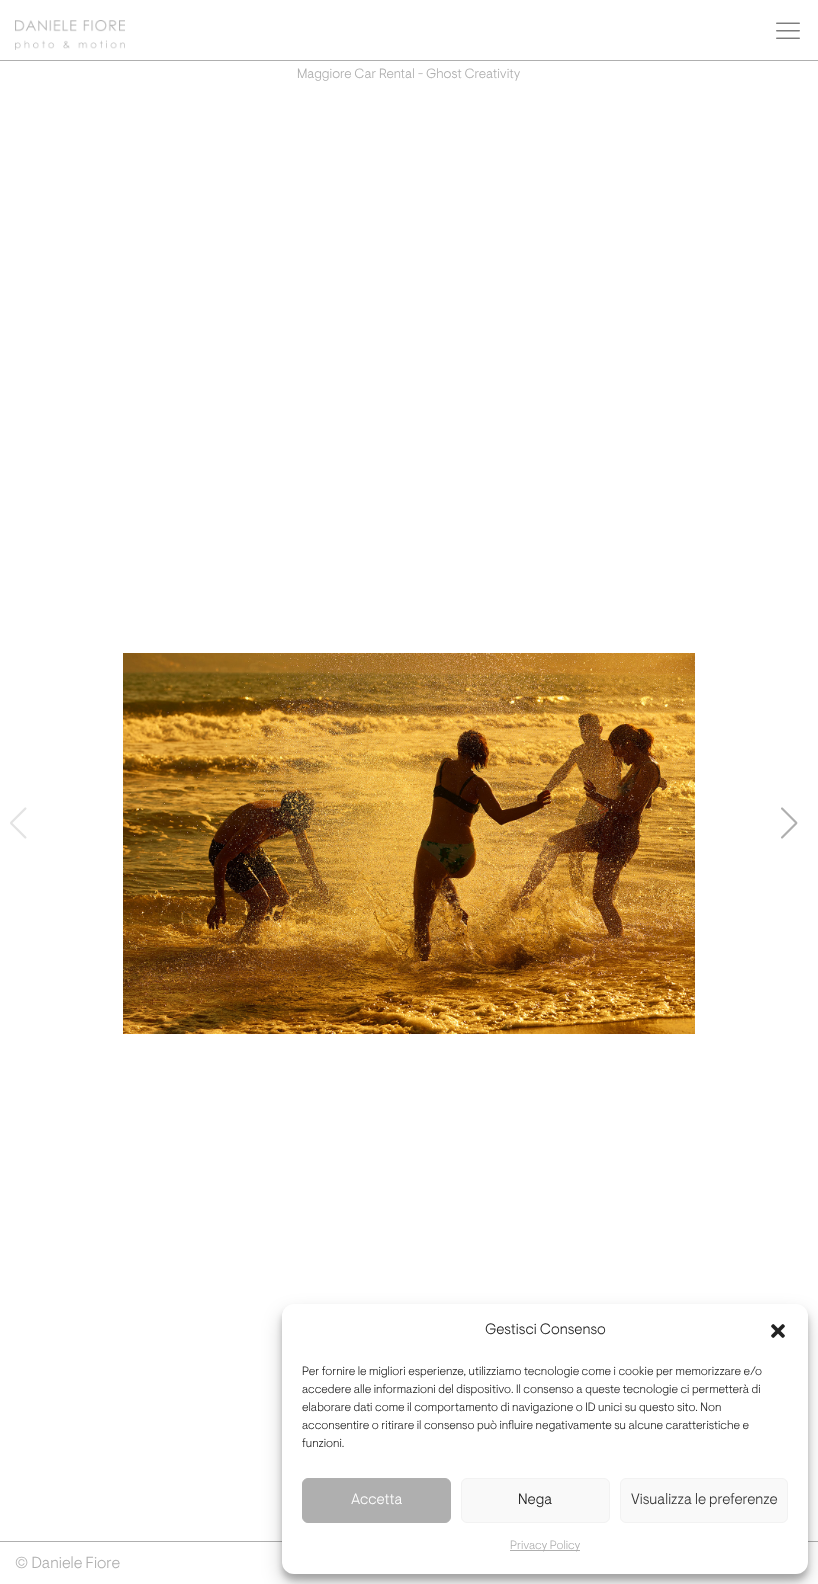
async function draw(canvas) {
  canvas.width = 818
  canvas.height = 1584
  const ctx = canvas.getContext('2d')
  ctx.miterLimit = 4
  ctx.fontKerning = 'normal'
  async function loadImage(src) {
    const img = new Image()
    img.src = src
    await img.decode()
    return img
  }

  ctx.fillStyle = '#fff'
  ctx.fillRect(0, 0, 818, 1584)
  ctx.fillStyle = '#afafaf'
  ctx.fillRect(0, 60, 818, 1)
  ctx.drawImage(await loadImage('image0.png'), 15, 20, 110, 30)
  ctx.drawImage(await loadImage('image1.png'), 776, 22, 24, 17)
  ctx.font = '300 13.5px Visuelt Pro'
  ctx.fillText('Maggiore Car Rental - Ghost Creativity', 297, 78)
  ctx.drawImage(await loadImage('image2.png'), 10, 807, 17, 32)
  ctx.drawImage(await loadImage('image3.png'), 123, 653, 572, 381)
  ctx.drawImage(await loadImage('image4.png'), 781, 807, 17, 32)
  ctx.fillRect(0, 1541, 818, 1)
  ctx.fillStyle = '#0000003b'
  ctx.filter = 'blur(3px)'
  ctx.beginPath()
  ctx.roundRect(282, 1310, 526, 270, 12)
  ctx.fill()
  ctx.filter = 'none'
  ctx.fillStyle = '#00000030'
  ctx.filter = 'blur(10px)'
  ctx.beginPath()
  ctx.roundRect(282, 1314, 526, 270, 12)
  ctx.fill()
  ctx.filter = 'none'
  ctx.fillStyle = '#fff'
  ctx.beginPath()
  ctx.roundRect(282, 1304, 526, 270, 12)
  ctx.fill()
  ctx.font = '300 15px Visuelt Pro'
  ctx.fillStyle = '#222'
  ctx.fillText('Gestisci Consenso', 485, 1334)
  ctx.drawImage(await loadImage('image5.png'), 771, 1324, 14, 14)
  ctx.font = '300 12px Visuelt Pro'
  ctx.fillText('Per fornire le migliori esperienze, utilizziamo tecnologie come i cookie per memorizzare e/o', 302, 1375)
  ctx.fillText('accedere alle informazioni del dispositivo. Il consenso a queste tecnologie ci permetterà di', 302, 1393)
  ctx.fillText('elaborare dati come il comportamento di navigazione o ID unici su questo sito. Non', 302, 1411)
  ctx.fillText('acconsentire o ritirare il consenso può influire negativamente su alcune caratteristiche e', 302, 1429)
  ctx.fillText('funzioni.', 302, 1447)
  ctx.fillStyle = '#afafaf'
  ctx.beginPath()
  ctx.roundRect(302.5, 1478.5, 148, 44, 5.5)
  ctx.fill()
  ctx.strokeStyle = '#afafaf'
  ctx.stroke()
  ctx.font = '300 15px Visuelt Pro'
  ctx.fillStyle = '#fff'
  ctx.fillText('Accetta', 351, 1504)
  ctx.fillStyle = '#f9f9f9'
  ctx.beginPath()
  ctx.roundRect(461.5, 1478.5, 148, 44, 5.5)
  ctx.fill()
  ctx.strokeStyle = '#f2f2f2'
  ctx.stroke()
  ctx.fillStyle = '#222'
  ctx.fillText('Nega', 518, 1504)
  ctx.fillStyle = '#f9f9f9'
  ctx.beginPath()
  ctx.roundRect(620.5, 1478.5, 167, 44, 5.5)
  ctx.fill()
  ctx.stroke()
  ctx.fillStyle = '#333'
  ctx.fillText('Visualizza le preferenze', 631, 1504)
  ctx.fillStyle = '#afafaf'
  ctx.fillRect(510, 1550, 70, 1)
  ctx.font = '300 12px Visuelt Pro'
  ctx.fillText('Privacy Policy', 510, 1549)
  ctx.font = '300 16px Visuelt Pro'
  ctx.fillText('© Daniele Fiore', 15, 1568)
}

draw(document.querySelector('canvas'))
